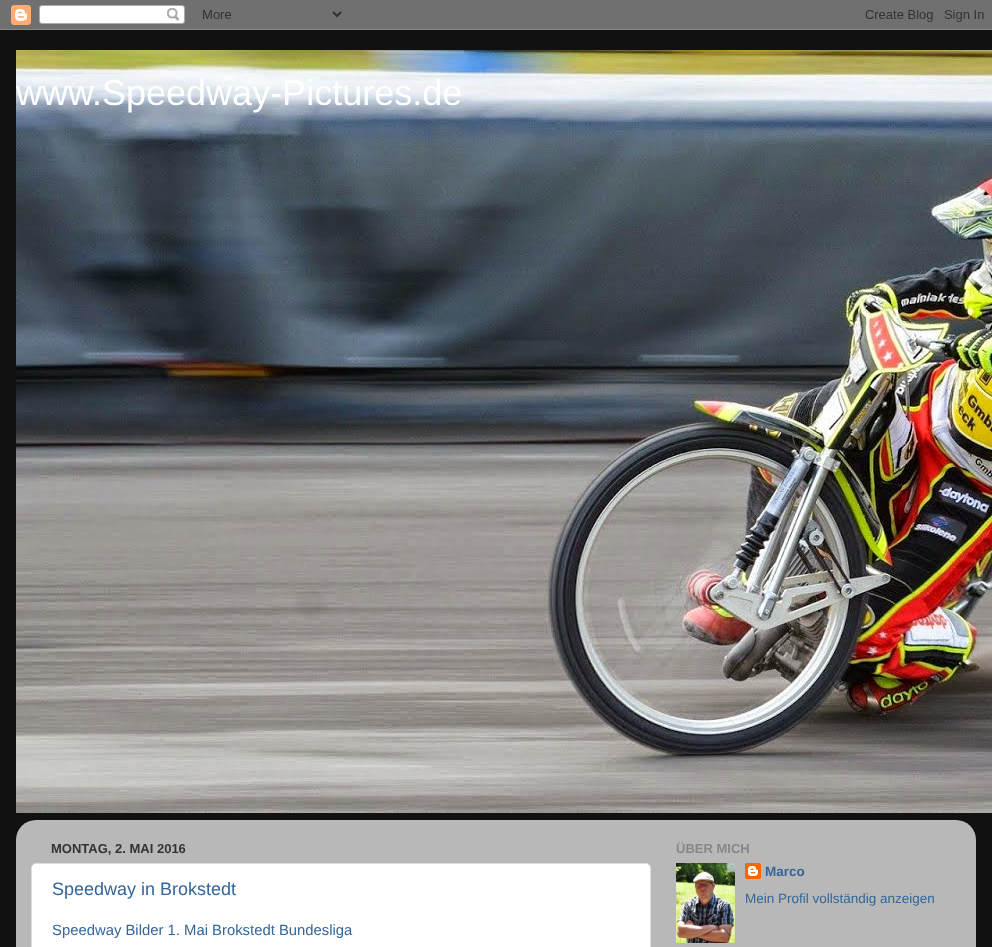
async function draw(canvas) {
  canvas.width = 992
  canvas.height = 947
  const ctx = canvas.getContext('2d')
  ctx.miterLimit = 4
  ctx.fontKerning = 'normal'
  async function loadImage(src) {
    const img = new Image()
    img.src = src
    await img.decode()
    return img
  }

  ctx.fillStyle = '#111'
  ctx.fillRect(0, 0, 992, 947)
  ctx.drawImage(await loadImage('image0.png'), 0, 0, 992, 30)
  ctx.drawImage(await loadImage('image1.png'), 16, 50, 976, 763)
  ctx.font = '36px Liberation Sans'
  ctx.fillStyle = '#fff'
  ctx.fillText('www.Speedway-Pictures.de', 16, 105)
  ctx.drawImage(await loadImage('image2.png'), 16, 820, 960, 127)
  ctx.font = 'bold 13px Liberation Sans'
  ctx.fillStyle = '#333'
  ctx.fillText('MONTAG, 2. MAI 2016', 51, 853)
  ctx.fillStyle = '#fff'
  ctx.beginPath()
  ctx.roundRect(31.5, 863.5, 619, 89, 4.5)
  ctx.fill()
  ctx.strokeStyle = '#ddd'
  ctx.stroke()
  ctx.font = '18px Liberation Sans'
  ctx.fillStyle = '#369'
  ctx.fillText('Speedway in Brokstedt', 52, 895)
  ctx.font = '14.85px Liberation Sans'
  ctx.fillText('Speedway Bilder 1. Mai Brokstedt Bundesliga', 52, 935)
  ctx.font = 'bold 13px Liberation Sans'
  ctx.fillStyle = '#888'
  ctx.fillText('ÜBER MICH', 676, 853)
  ctx.drawImage(await loadImage('image3.png'), 676, 863, 59, 80)
  ctx.drawImage(await loadImage('image4.png'), 745, 863, 16, 16)
  ctx.font = 'bold 13.5px Liberation Sans'
  ctx.fillStyle = '#369'
  ctx.fillText('Marco', 765, 876)
  ctx.font = '13.5px Liberation Sans'
  ctx.fillText('Mein Profil vollständig anzeigen', 745, 903)
}

draw(document.querySelector('canvas'))
